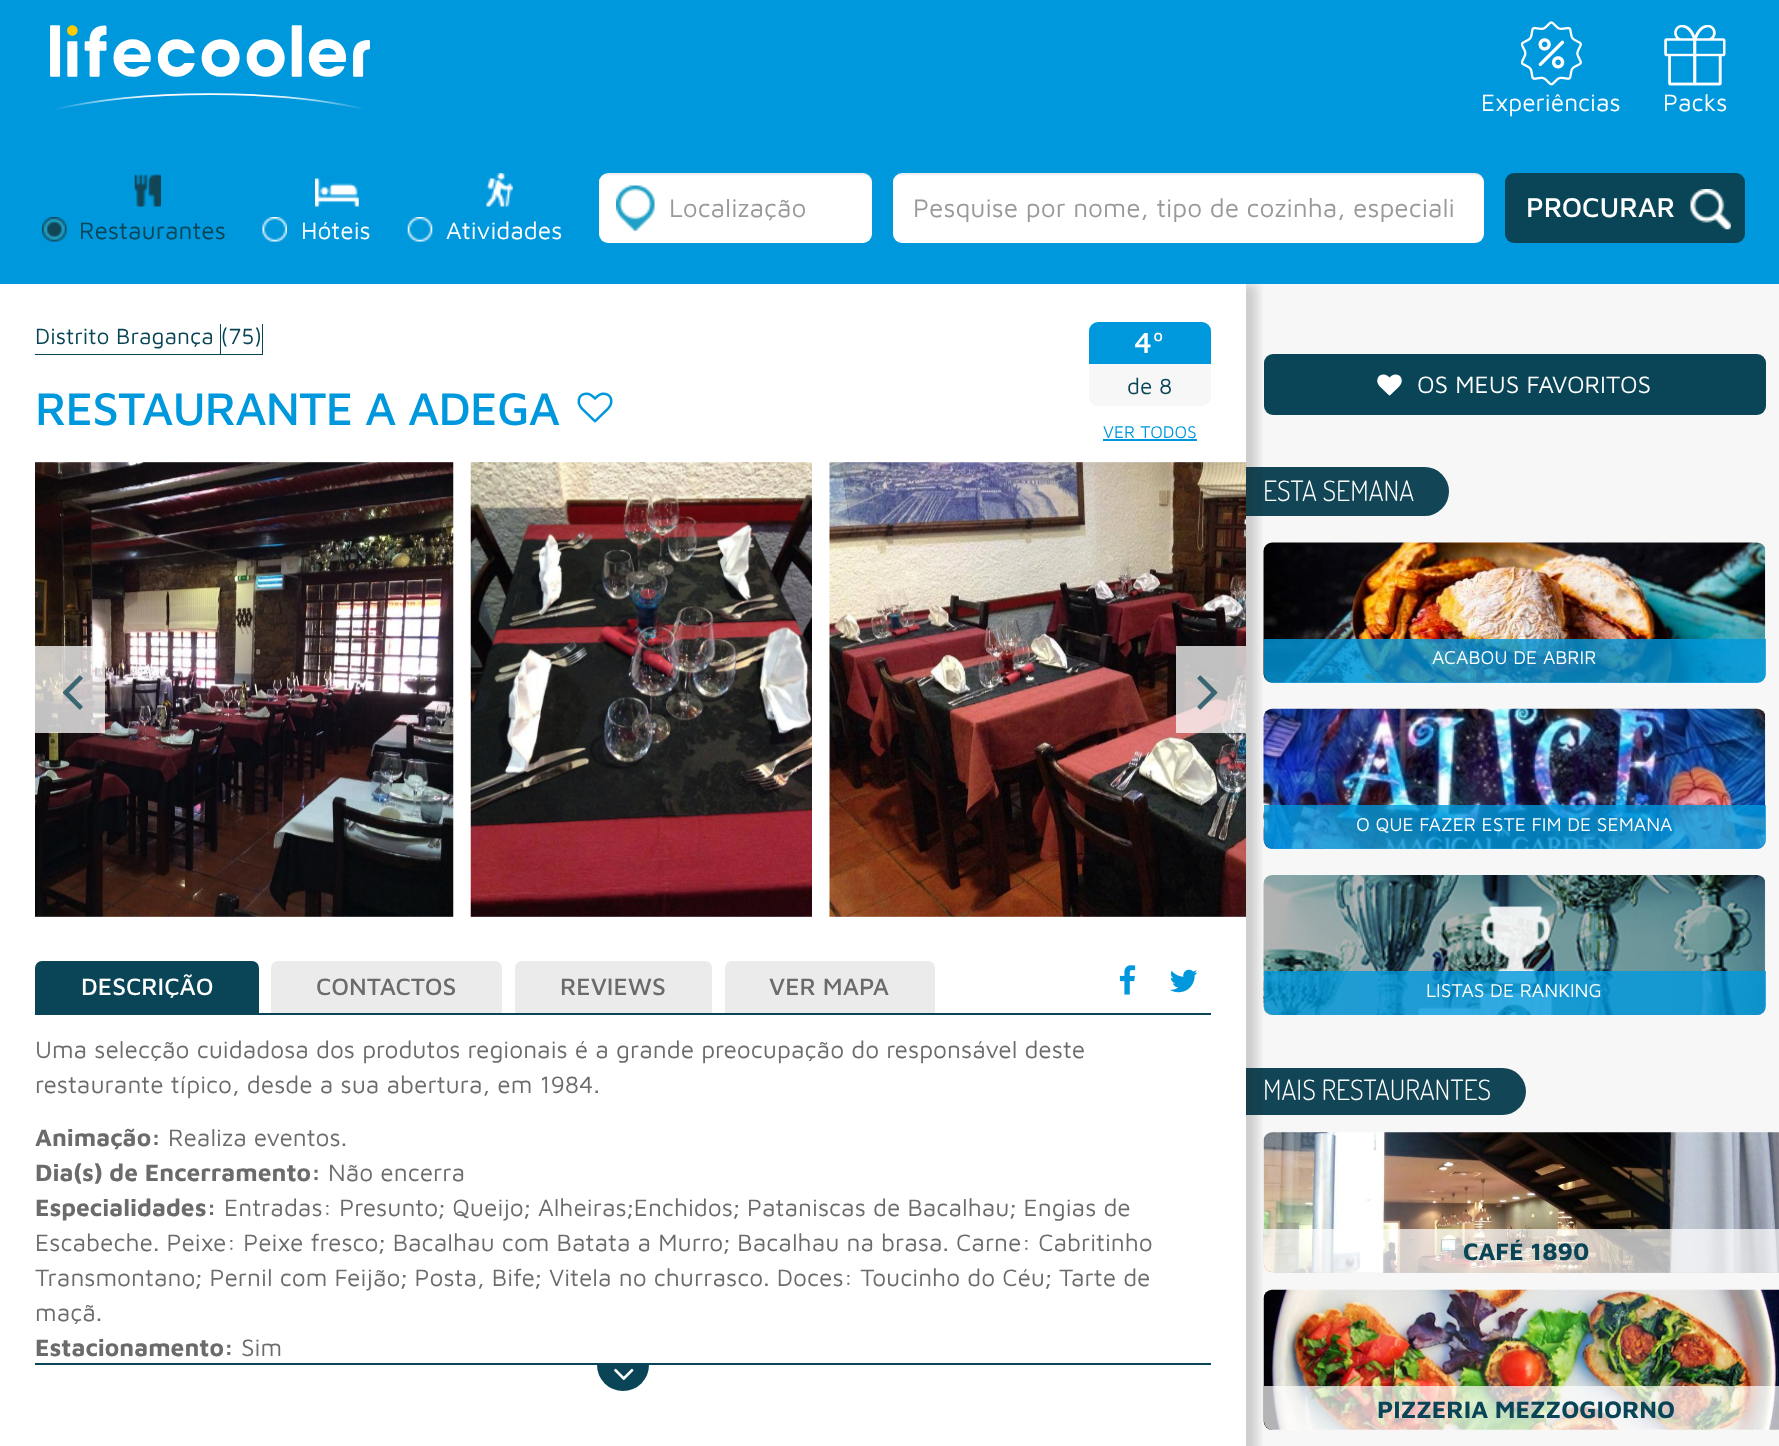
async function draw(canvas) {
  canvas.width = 1779
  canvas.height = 1446
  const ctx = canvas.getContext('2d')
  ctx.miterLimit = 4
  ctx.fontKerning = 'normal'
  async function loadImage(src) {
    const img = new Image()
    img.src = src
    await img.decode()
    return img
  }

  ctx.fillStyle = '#fff'
  ctx.fillRect(0, 0, 1779, 1446)
  ctx.fillStyle = '#f7f7f7'
  ctx.fillRect(1246, 284, 533, 1162)
  ctx.fillStyle = '#094556'
  ctx.beginPath()
  ctx.roundRect(1264, 354, 502, 61, 9)
  ctx.fill()
  ctx.fillStyle = '#124555'
  ctx.beginPath()
  ctx.roundRect(1246, 467, 203, 49, [0, 24.5, 24.5, 0])
  ctx.fill()
  ctx.drawImage(await loadImage('image21.png'), 1263, 542, 503, 141)
  ctx.fillStyle = '#0098ddcc'
  ctx.beginPath()
  ctx.roundRect(1264, 639, 502, 44, [0, 0, 9, 9])
  ctx.fill()
  ctx.drawImage(await loadImage('image22.png'), 1263, 708, 503, 141)
  ctx.beginPath()
  ctx.roundRect(1264, 805, 502, 44, [0, 0, 9, 9])
  ctx.fill()
  ctx.drawImage(await loadImage('image23.png'), 1263, 875, 503, 140)
  ctx.beginPath()
  ctx.roundRect(1264, 971, 502, 44, [0, 0, 9, 9])
  ctx.fill()
  ctx.fillStyle = '#124555'
  ctx.beginPath()
  ctx.roundRect(1246, 1068, 280, 47, [0, 23.5, 23.5, 0])
  ctx.fill()
  ctx.drawImage(await loadImage('image24.png'), 1263, 1132, 516, 141)
  ctx.fillStyle = '#ffffffb3'
  ctx.beginPath()
  ctx.moveTo(1264, 1229)
  ctx.lineTo(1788, 1229)
  ctx.lineTo(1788, 1263)
  ctx.bezierCurveTo(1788, 1268, 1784, 1272, 1779, 1272)
  ctx.lineTo(1273, 1272)
  ctx.bezierCurveTo(1268, 1272, 1264, 1268, 1264, 1263)
  ctx.closePath()
  ctx.fill()
  ctx.drawImage(await loadImage('image25.png'), 1263, 1289, 516, 141)
  ctx.beginPath()
  ctx.moveTo(1264, 1386)
  ctx.lineTo(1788, 1386)
  ctx.lineTo(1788, 1421)
  ctx.bezierCurveTo(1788, 1426, 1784, 1430, 1779, 1430)
  ctx.lineTo(1273, 1430)
  ctx.bezierCurveTo(1268, 1430, 1264, 1426, 1264, 1421)
  ctx.closePath()
  ctx.fill()
  ctx.save()
  ctx.beginPath()
  ctx.rect(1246, 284, 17, 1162)
  ctx.clip()
  ctx.fillStyle = '#29292933'
  ctx.filter = 'blur(5px)'
  ctx.beginPath()
  ctx.rect(11, 284, 1246, 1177)
  ctx.fill()
  ctx.filter = 'none'
  ctx.restore()
  ctx.fillStyle = '#0098dd'
  ctx.fillRect(0, 0, 1779, 284)
  ctx.drawImage(await loadImage('image0.png'), 50, 25, 320, 85)
  ctx.drawImage(await loadImage('image1.png'), 1521, 21, 61, 65)
  ctx.font = '24.5px Maven Pro'
  ctx.fillStyle = '#fff'
  ctx.fillText('Experiências', 1481, 111)
  ctx.drawImage(await loadImage('image2.png'), 1664, 25, 62, 61)
  ctx.fillText('Packs', 1663, 111)
  ctx.beginPath()
  ctx.roundRect(599, 173, 273, 70, 9)
  ctx.fill()
  ctx.drawImage(await loadImage('image3.png'), 616, 185, 39, 46)
  ctx.fillStyle = '#00000012'
  ctx.beginPath()
  ctx.moveTo(607, 175)
  ctx.lineTo(863, 175)
  ctx.bezierCurveTo(868, 175, 872, 179, 872, 184)
  ctx.lineTo(872, 182)
  ctx.bezierCurveTo(872, 177, 868, 173, 863, 173)
  ctx.lineTo(608, 173)
  ctx.bezierCurveTo(604, 173, 601, 175, 600, 179)
  ctx.bezierCurveTo(601, 177, 604, 175, 607, 175)
  ctx.closePath()
  ctx.fill()
  ctx.font = '26.25px Maven Pro'
  ctx.fillStyle = '#999'
  ctx.fillText('Localização', 669, 217)
  ctx.fillStyle = '#fff'
  ctx.beginPath()
  ctx.roundRect(893, 173, 591, 70, 9)
  ctx.fill()
  ctx.fillStyle = '#00000012'
  ctx.beginPath()
  ctx.moveTo(901, 175)
  ctx.lineTo(1475, 175)
  ctx.bezierCurveTo(1480, 175, 1484, 179, 1484, 184)
  ctx.lineTo(1484, 182)
  ctx.bezierCurveTo(1484, 177, 1480, 173, 1475, 173)
  ctx.lineTo(902, 173)
  ctx.bezierCurveTo(898, 173, 895, 175, 894, 179)
  ctx.bezierCurveTo(895, 177, 898, 175, 901, 175)
  ctx.closePath()
  ctx.fill()
  ctx.save()
  ctx.beginPath()
  ctx.rect(914, 193, 549, 29)
  ctx.clip()
  ctx.fillStyle = '#999'
  ctx.fillText('Pesquise por nome, tipo de cozinha, especiali', 913, 217)
  ctx.restore()
  ctx.fillStyle = '#094556'
  ctx.beginPath()
  ctx.roundRect(1505, 173, 240, 70, 9)
  ctx.fill()
  ctx.font = '500 28px Maven Pro'
  ctx.fillStyle = '#fff'
  ctx.fillText('PROCURAR', 1526, 217)
  ctx.drawImage(await loadImage('image4.png'), 1690, 189, 41, 41)
  ctx.drawImage(await loadImage('image5.png'), 134, 174, 27, 33)
  ctx.drawImage(await loadImage('image6.png'), 42, 217, 25, 25)
  ctx.font = '24.5px Maven Pro'
  ctx.fillStyle = '#094556'
  ctx.fillText('Restaurantes', 79, 239)
  ctx.drawImage(await loadImage('image7.png'), 315, 178, 44, 29)
  ctx.drawImage(await loadImage('image8.png'), 262, 217, 25, 25)
  ctx.fillStyle = '#fff'
  ctx.fillText('Hóteis', 301, 239)
  ctx.drawImage(await loadImage('image9.png'), 486, 173, 27, 34)
  ctx.drawImage(await loadImage('image10.png'), 407, 217, 26, 25)
  ctx.fillText('Atividades', 446, 239)
  ctx.fillStyle = '#094556'
  ctx.beginPath()
  ctx.moveTo(35, 354)
  ctx.lineTo(35, 355)
  ctx.lineTo(221, 355)
  ctx.lineTo(221, 324)
  ctx.lineTo(220, 324)
  ctx.lineTo(220, 354)
  ctx.closePath()
  ctx.fill()
  ctx.beginPath()
  ctx.moveTo(221, 354)
  ctx.lineTo(221, 355)
  ctx.lineTo(263, 355)
  ctx.lineTo(263, 324)
  ctx.lineTo(262, 324)
  ctx.lineTo(262, 354)
  ctx.closePath()
  ctx.fill()
  ctx.font = '22.75px Maven Pro'
  ctx.fillText('Distrito Bragança (75)', 35, 344)
  ctx.letterSpacing = '-0.9px'
  ctx.font = '500 47.25px Maven Pro'
  ctx.fillStyle = '#0098dd'
  ctx.fillText('RESTAURANTE A ADEGA', 35, 425)
  ctx.drawImage(await loadImage('image11.png'), 577, 392, 36, 31)
  ctx.beginPath()
  ctx.roundRect(1089, 322, 122, 42, [9, 9, 0, 0])
  ctx.fill()
  ctx.letterSpacing = '0px'
  ctx.font = '500 30px Maven Pro'
  ctx.fillStyle = '#fff'
  ctx.fillText('4º', 1134, 353)
  ctx.fillStyle = '#f7f7f7'
  ctx.beginPath()
  ctx.roundRect(1089, 364, 122, 42, [0, 0, 9, 9])
  ctx.fill()
  ctx.font = '22.75px Maven Pro'
  ctx.fillStyle = '#094556'
  ctx.fillText('de 8', 1127, 394)
  ctx.font = '17.5px Maven Pro'
  ctx.fillStyle = '#0098dd'
  ctx.fillText('VER TODOS', 1103, 438)
  ctx.fillRect(1103, 439, 94, 2)
  ctx.drawImage(await loadImage('image12.png'), 35, 462, 419, 455)
  ctx.drawImage(await loadImage('image13.png'), 470, 462, 342, 455)
  ctx.drawImage(await loadImage('image14.png'), 829, 462, 417, 455)
  ctx.fillStyle = '#ffffffbf'
  ctx.fillRect(35, 646, 70, 87)
  ctx.drawImage(await loadImage('image15.png'), 62, 675, 21, 35)
  ctx.fillRect(1176, 646, 70, 87)
  ctx.drawImage(await loadImage('image16.png'), 1197, 675, 21, 35)
  ctx.fillStyle = '#094556'
  ctx.fillRect(35, 1013, 1176, 2)
  ctx.beginPath()
  ctx.roundRect(35, 961, 224, 52, [7, 7, 0, 0])
  ctx.fill()
  ctx.font = '500 24.5px Maven Pro'
  ctx.fillStyle = '#fff'
  ctx.fillText('DESCRIÇÃO', 81, 995)
  ctx.fillStyle = '#ebebeb'
  ctx.beginPath()
  ctx.roundRect(271, 961, 231, 52, [7, 7, 0, 0])
  ctx.fill()
  ctx.fillStyle = '#6b6b6b'
  ctx.fillText('CONTACTOS', 316, 995)
  ctx.fillStyle = '#ebebeb'
  ctx.beginPath()
  ctx.roundRect(515, 961, 197, 52, [7, 7, 0, 0])
  ctx.fill()
  ctx.fillStyle = '#6b6b6b'
  ctx.fillText('REVIEWS', 560, 995)
  ctx.fillStyle = '#ebebeb'
  ctx.beginPath()
  ctx.roundRect(725, 961, 210, 52, [7, 7, 0, 0])
  ctx.fill()
  ctx.fillStyle = '#6b6b6b'
  ctx.fillText('VER MAPA', 769, 995)
  ctx.drawImage(await loadImage('image17.png'), 1119, 965, 17, 30)
  ctx.drawImage(await loadImage('image18.png'), 1170, 969, 28, 24)
  ctx.fillStyle = '#094556'
  ctx.fillRect(35, 1363, 1176, 2)
  ctx.font = '24.5px Maven Pro'
  ctx.fillStyle = '#6b6b6b'
  ctx.fillText('Uma selecção cuidadosa dos produtos regionais é a grande preocupação do responsável deste', 35, 1058)
  ctx.fillText('restaurante típico, desde a sua abertura, em 1984.', 35, 1093)
  ctx.font = 'bold 24.5px Maven Pro'
  ctx.fillText('Animação:', 35, 1146)
  ctx.font = '24.5px Maven Pro'
  ctx.fillText('Realiza eventos.', 168, 1146)
  ctx.font = 'bold 24.5px Maven Pro'
  ctx.fillText('Dia(s) de Encerramento:', 35, 1181)
  ctx.font = '24.5px Maven Pro'
  ctx.fillText('Não encerra', 328, 1181)
  ctx.font = 'bold 24.5px Maven Pro'
  ctx.fillText('Especialidades:', 35, 1216)
  ctx.font = '24.5px Maven Pro'
  ctx.fillText('Entradas: Presunto; Queijo; Alheiras;Enchidos; Pataniscas de Bacalhau; Engias de', 224, 1216)
  ctx.fillText('Escabeche. Peixe: Peixe fresco; Bacalhau com Batata a Murro; Bacalhau na brasa. Carne: Cabritinho', 35, 1251)
  ctx.fillText('Transmontano; Pernil com Feijão; Posta, Bife; Vitela no churrasco. Doces: Toucinho do Céu; Tarte de', 35, 1286)
  ctx.fillText('maçã.', 35, 1321)
  ctx.font = 'bold 24.5px Maven Pro'
  ctx.fillText('Estacionamento:', 35, 1356)
  ctx.font = '24.5px Maven Pro'
  ctx.fillText('Sim', 241, 1356)
  ctx.fillStyle = '#094556'
  ctx.beginPath()
  ctx.roundRect(597, 1365, 52, 26, [0, 0, 26, 26])
  ctx.fill()
  ctx.drawImage(await loadImage('image19.png'), 614, 1368, 20, 13)
  ctx.drawImage(await loadImage('image20.png'), 1377, 374, 25, 22)
  ctx.fillStyle = '#fff'
  ctx.fillText('OS MEUS FAVORITOS', 1417, 393)
  ctx.font = '300 28px Dosis'
  ctx.fillText('ESTA SEMANA', 1263, 501)
  ctx.font = '19.25px Maven Pro'
  ctx.fillText('ACABOU DE ABRIR', 1432, 664)
  ctx.fillText('O QUE FAZER ESTE FIM DE SEMANA', 1356, 831)
  ctx.fillText('LISTAS DE RANKING', 1426, 997)
  ctx.font = '300 28px Dosis'
  ctx.fillText('MAIS RESTAURANTES', 1263, 1100)
  ctx.font = 'bold 24.5px Maven Pro'
  ctx.fillStyle = '#094556'
  ctx.fillText('CAFÉ 1890', 1463, 1260)
  ctx.fillText('PIZZERIA MEZZOGIORNO', 1377, 1418)
}

draw(document.querySelector('canvas'))
